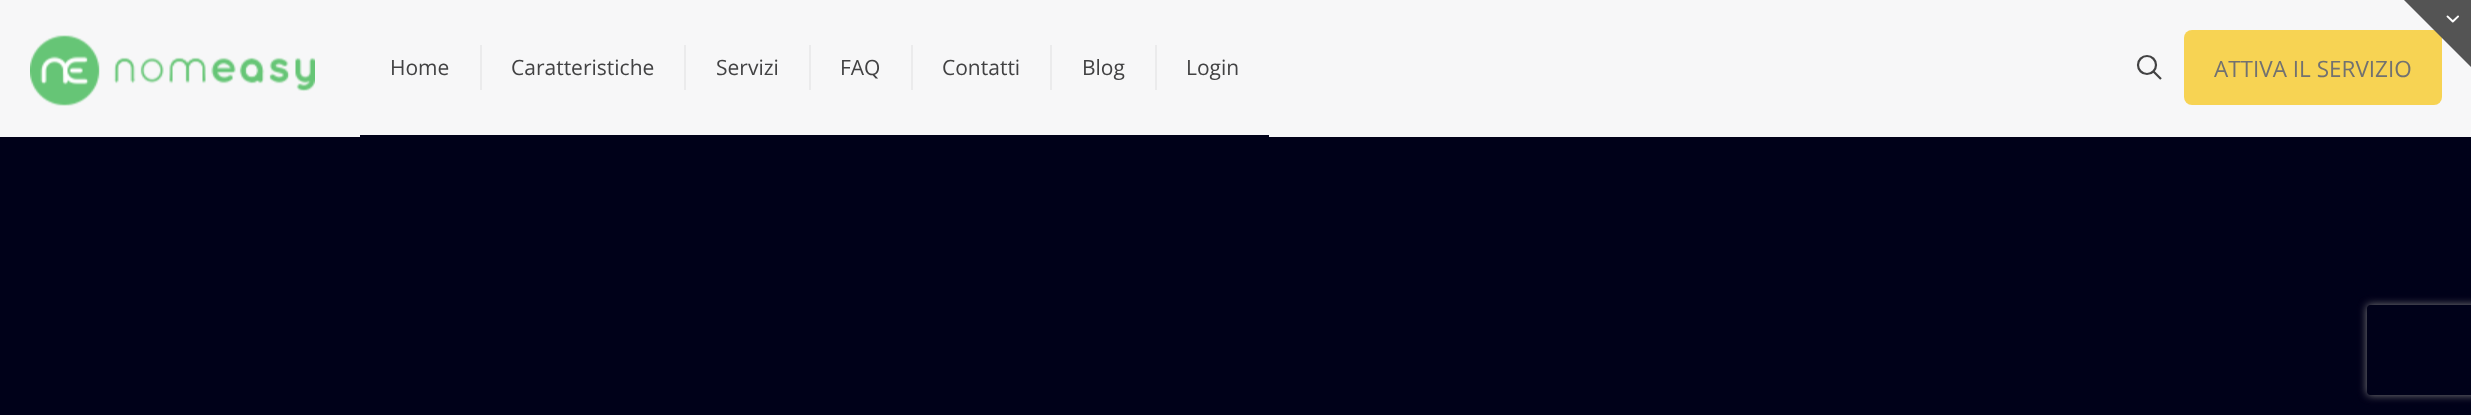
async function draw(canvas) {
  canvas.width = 2471
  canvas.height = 415
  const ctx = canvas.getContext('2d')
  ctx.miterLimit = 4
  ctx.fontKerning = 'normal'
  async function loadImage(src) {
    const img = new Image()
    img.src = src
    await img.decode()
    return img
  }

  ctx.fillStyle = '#000119'
  ctx.fillRect(0, 0, 2471, 415)
  ctx.fillStyle = '#f7f7f8'
  ctx.fillRect(0, 0, 2471, 137)
  ctx.fillStyle = '#f7d353'
  ctx.beginPath()
  ctx.roundRect(2184, 30, 258, 75, 8)
  ctx.fill()
  ctx.font = '22.5px Open Sans'
  ctx.fillStyle = '#717171'
  ctx.fillText('ATTIVA IL SERVIZIO', 2214, 77)
  ctx.fillStyle = '#545454'
  ctx.beginPath()
  ctx.moveTo(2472, 0)
  ctx.lineTo(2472, 68)
  ctx.lineTo(2404, 0)
  ctx.closePath()
  ctx.fill()
  ctx.drawImage(await loadImage('image0.png'), 2446, 15, 13, 8)
  ctx.drawImage(await loadImage('image1.png'), 30, 35, 285, 71)
  ctx.fillStyle = '#ebebec'
  ctx.fillRect(480, 45, 2, 45)
  ctx.font = '21px Open Sans'
  ctx.fillStyle = '#424243'
  ctx.fillText('Home', 390, 75)
  ctx.fillStyle = '#000119'
  ctx.fillRect(360, 135, 909, 2)
  ctx.fillStyle = '#ebebec'
  ctx.fillRect(684, 45, 2, 45)
  ctx.fillStyle = '#424243'
  ctx.fillText('Caratteristiche', 511, 75)
  ctx.fillStyle = '#ebebec'
  ctx.fillRect(809, 45, 2, 45)
  ctx.fillStyle = '#424243'
  ctx.fillText('Servizi', 716, 75)
  ctx.fillStyle = '#ebebec'
  ctx.fillRect(911, 45, 2, 45)
  ctx.fillStyle = '#424243'
  ctx.fillText('FAQ', 840, 75)
  ctx.fillStyle = '#ebebec'
  ctx.fillRect(1050, 45, 2, 45)
  ctx.fillStyle = '#424243'
  ctx.fillText('Contatti', 942, 75)
  ctx.fillStyle = '#ebebec'
  ctx.fillRect(1155, 45, 2, 45)
  ctx.fillStyle = '#424243'
  ctx.fillText('Blog', 1082, 75)
  ctx.fillText('Login', 1186, 75)
  ctx.beginPath()
  ctx.arc(2147, 65, 9, 0, 2 * Math.PI)
  ctx.strokeStyle = '#424243'
  ctx.lineWidth = 2.2
  ctx.stroke()
  ctx.beginPath()
  ctx.moveTo(2153.5, 71.5)
  ctx.lineTo(2161, 79)
  ctx.stroke()
  ctx.save()
  ctx.beginPath()
  ctx.moveTo(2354, 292)
  ctx.lineTo(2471, 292)
  ctx.lineTo(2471, 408)
  ctx.lineTo(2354, 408)
  ctx.closePath()
  ctx.moveTo(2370, 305)
  ctx.lineTo(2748, 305)
  ctx.bezierCurveTo(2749.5, 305, 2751, 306.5, 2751, 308)
  ctx.lineTo(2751, 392)
  ctx.bezierCurveTo(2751, 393.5, 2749.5, 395, 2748, 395)
  ctx.lineTo(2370, 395)
  ctx.bezierCurveTo(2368.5, 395, 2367, 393.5, 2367, 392)
  ctx.lineTo(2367, 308)
  ctx.bezierCurveTo(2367, 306.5, 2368.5, 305, 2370, 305)
  ctx.closePath()
  ctx.clip('evenodd')
  ctx.fillStyle = '#808080'
  ctx.filter = 'blur(4px)'
  ctx.beginPath()
  ctx.roundRect(2367, 305, 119, 90, 3)
  ctx.fill()
  ctx.filter = 'none'
  ctx.restore()
}

draw(document.querySelector('canvas'))
